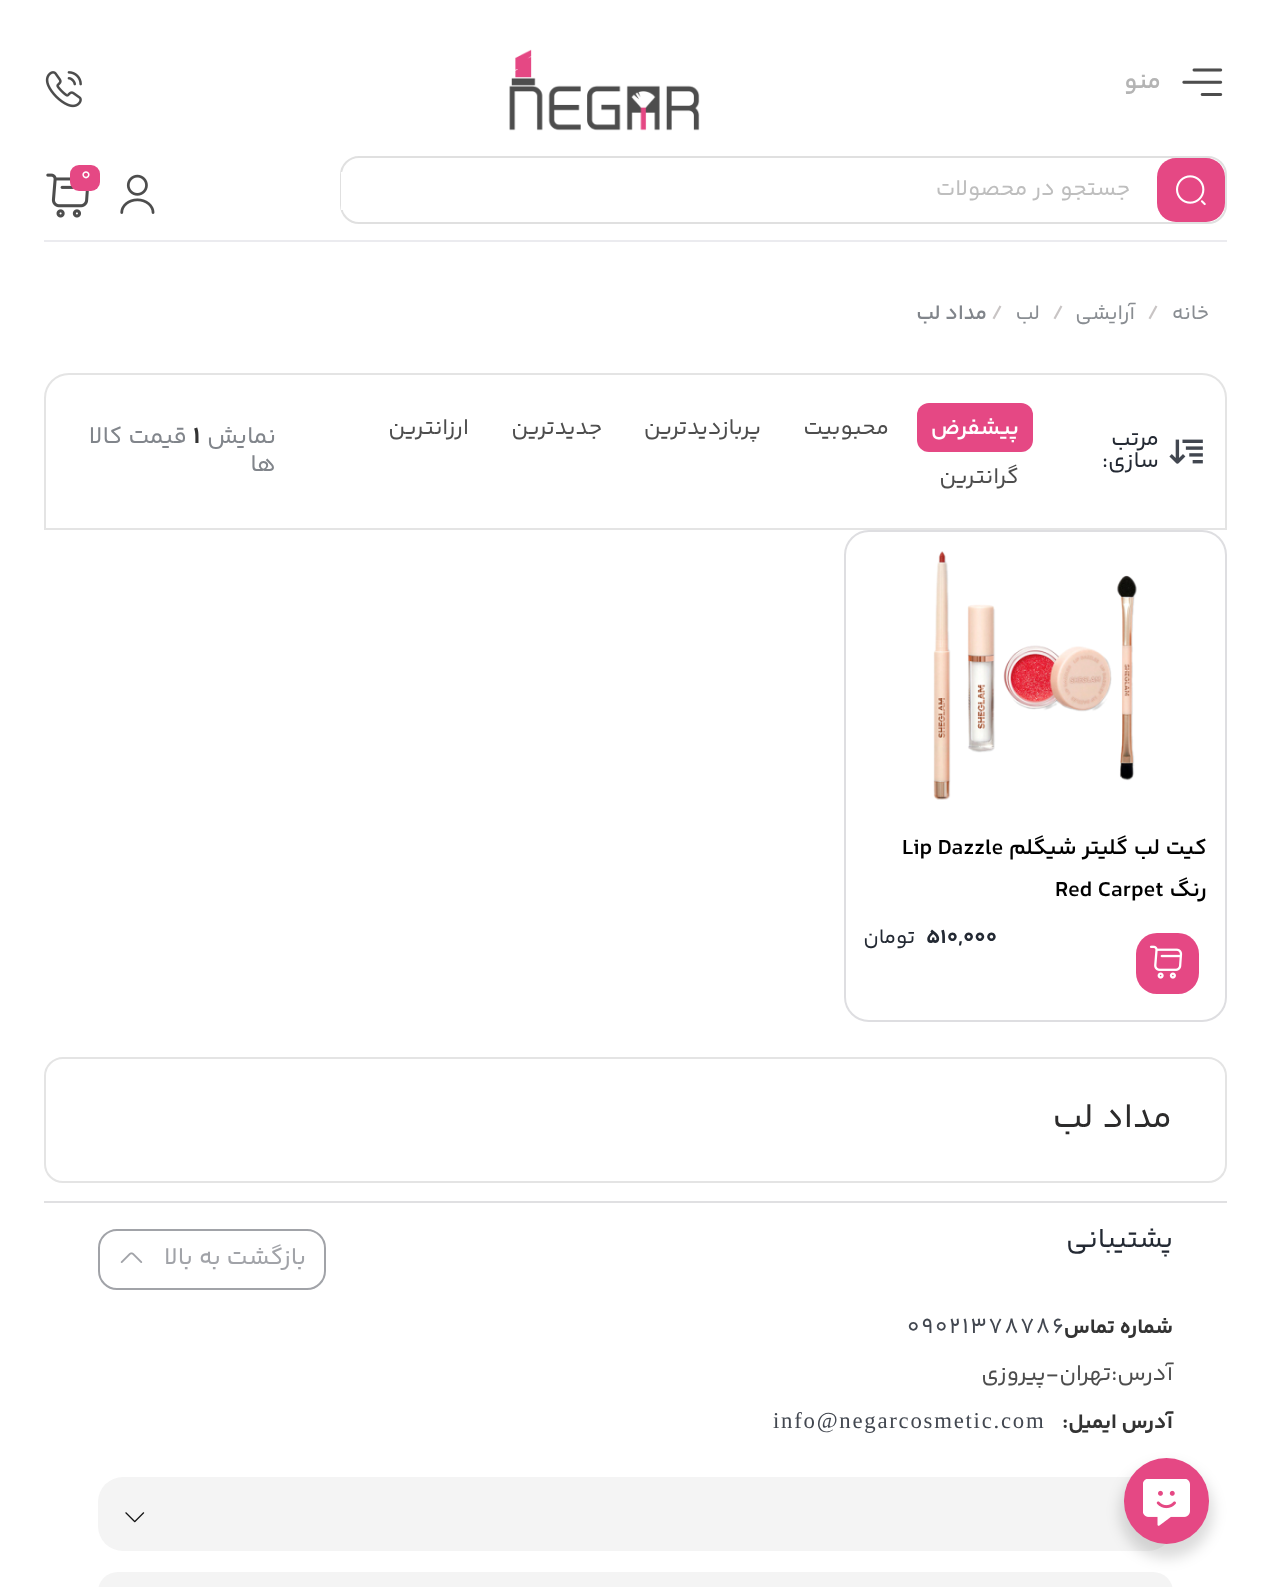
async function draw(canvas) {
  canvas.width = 1269
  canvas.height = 1587
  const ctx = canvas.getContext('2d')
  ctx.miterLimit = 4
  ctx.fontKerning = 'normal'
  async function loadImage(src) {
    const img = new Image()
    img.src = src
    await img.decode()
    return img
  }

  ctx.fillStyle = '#fff'
  ctx.fillRect(0, 0, 1269, 1587)
  ctx.drawImage(await loadImage('image0.png'), 1182, 68, 41, 28)
  ctx.direction = 'rtl'
  ctx.font = '600 24.5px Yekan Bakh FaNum'
  ctx.fillStyle = '#b4b4b4'
  ctx.fillText('منو', 1161, 88)
  ctx.drawImage(await loadImage('image1.png'), 509, 49, 191, 82)
  ctx.drawImage(await loadImage('image2.png'), 45, 71, 37, 37)
  ctx.fillStyle = '#ebebef'
  ctx.fillRect(44, 240, 1183, 2)
  ctx.drawImage(await loadImage('image3.png'), 120, 174, 35, 40)
  ctx.drawImage(await loadImage('image4.png'), 46, 173, 43, 45)
  ctx.fillStyle = '#e54884'
  ctx.beginPath()
  ctx.roundRect(70, 165, 30, 26, 9)
  ctx.fill()
  ctx.direction = 'ltr'
  ctx.font = '18px Yekan Bakh FaNum'
  ctx.fillStyle = '#fff'
  ctx.fillText('0', 81, 180)
  ctx.beginPath()
  ctx.roundRect(341, 157, 885, 66, 18)
  ctx.strokeStyle = '#e0e0e0'
  ctx.lineWidth = 2
  ctx.stroke()
  ctx.fillStyle = '#e54884'
  ctx.beginPath()
  ctx.roundRect(1157, 158, 68, 64, 19)
  ctx.fill()
  ctx.drawImage(await loadImage('image5.png'), 1176, 175, 30, 31)
  ctx.fillStyle = '#fff'
  ctx.fillRect(341, 172, 2, 38)
  ctx.direction = 'rtl'
  ctx.font = '22.75px Yekan Bakh FaNum'
  ctx.fillStyle = '#bebebe'
  ctx.fillText('جستجو در محصولات', 1130, 195)
  ctx.font = '21px Yekan Bakh FaNum'
  ctx.fillStyle = '#898d92'
  ctx.fillText('خانه', 1209, 319)
  ctx.direction = 'ltr'
  ctx.font = '600 21px Yekan Bakh FaNum'
  ctx.fillStyle = '#c8c4c4'
  ctx.fillText('/', 1147, 319)
  ctx.direction = 'rtl'
  ctx.font = '21px Yekan Bakh FaNum'
  ctx.fillStyle = '#898d92'
  ctx.fillText('آرایشی', 1135, 319)
  ctx.direction = 'ltr'
  ctx.font = '600 21px Yekan Bakh FaNum'
  ctx.fillStyle = '#c8c4c4'
  ctx.fillText('/', 1052, 319)
  ctx.direction = 'rtl'
  ctx.font = '21px Yekan Bakh FaNum'
  ctx.fillStyle = '#898d92'
  ctx.fillText('لب', 1040, 319)
  ctx.direction = 'ltr'
  ctx.font = '600 21px Yekan Bakh FaNum'
  ctx.fillStyle = '#c8c4c4'
  ctx.fillText('/', 991, 319)
  ctx.direction = 'rtl'
  ctx.fillStyle = '#81858b'
  ctx.fillText('مداد لب', 987, 319)
  ctx.beginPath()
  ctx.roundRect(45, 374, 1181, 155, [24, 24, 0, 0])
  ctx.strokeStyle = '#e4e4e4'
  ctx.stroke()
  ctx.drawImage(await loadImage('image6.png'), 1169, 439, 34, 25)
  ctx.font = '22.75px Yekan Bakh FaNum'
  ctx.fillStyle = '#232933'
  ctx.fillText('مرتب', 1159, 445)
  ctx.fillText('سازی:', 1159, 467)
  ctx.fillStyle = '#e54884'
  ctx.beginPath()
  ctx.roundRect(917, 403, 116, 49, 12)
  ctx.fill()
  ctx.font = '600 22.75px Yekan Bakh FaNum'
  ctx.fillStyle = '#fff'
  ctx.fillText('پیشفرض', 1019, 434)
  ctx.font = '22.75px Yekan Bakh FaNum'
  ctx.fillStyle = '#4d4d4d'
  ctx.fillText('محبوبیت', 889, 434)
  ctx.fillText('پربازدیدترین', 761, 434)
  ctx.fillText('جدیدترین', 602, 434)
  ctx.fillText('ارزانترین', 469, 434)
  ctx.fillText('گرانترین', 1019, 483)
  ctx.font = '24.5px Yekan Bakh FaNum'
  ctx.fillStyle = '#81858b'
  ctx.fillText('نمایش', 276, 443)
  ctx.direction = 'ltr'
  ctx.font = 'bold 24.5px Yekan Bakh FaNum'
  ctx.fillStyle = '#333'
  ctx.fillText('1', 193, 443)
  ctx.direction = 'rtl'
  ctx.font = '24.5px Yekan Bakh FaNum'
  ctx.fillStyle = '#81858b'
  ctx.fillText('قیمت کالا', 187, 443)
  ctx.fillText('ها', 276, 471)
  ctx.beginPath()
  ctx.roundRect(845, 531, 381, 490, 24)
  ctx.strokeStyle = '#dedee1'
  ctx.stroke()
  ctx.drawImage(await loadImage('image7.png'), 933, 551, 204, 249)
  ctx.font = '600 22.75px Yekan Bakh FaNum'
  ctx.fillStyle = '#000'
  ctx.fillText('کیت لب گلیتر شیگلم', 1207, 854)
  ctx.direction = 'ltr'
  ctx.fillText('Lip Dazzle', 902, 854)
  ctx.direction = 'rtl'
  ctx.fillText('رنگ', 1207, 896)
  ctx.direction = 'ltr'
  ctx.fillText('Red Carpet', 1055, 896)
  ctx.fillStyle = '#e54884'
  ctx.beginPath()
  ctx.roundRect(1136, 933, 63, 61, 21)
  ctx.fill()
  ctx.drawImage(await loadImage('image8.png'), 1149, 945, 34, 34)
  ctx.font = 'bold 21px Yekan Bakh FaNum'
  ctx.fillStyle = '#232933'
  ctx.fillText('510,000', 926, 943)
  ctx.direction = 'rtl'
  ctx.font = '21px Yekan Bakh FaNum'
  ctx.fillText('تومان', 915, 943)
  ctx.beginPath()
  ctx.roundRect(45, 1058, 1181, 124, 18)
  ctx.strokeStyle = '#e4e4e4'
  ctx.stroke()
  ctx.letterSpacing = '-0.25px'
  ctx.wordSpacing = '1px'
  ctx.font = '35px Yekan Bakh FaNum'
  ctx.fillStyle = '#2c2b2b'
  ctx.fillText('مداد لب', 1172, 1127)
  ctx.fillStyle = '#e0e0e2'
  ctx.fillRect(44, 1201, 1183, 2)
  ctx.letterSpacing = '0px'
  ctx.wordSpacing = '0px'
  ctx.font = '28px Yekan Bakh FaNum'
  ctx.fillStyle = '#232933'
  ctx.fillText('پشتیبانی', 1173, 1247)
  ctx.font = 'bold 21px Yekan Bakh FaNum'
  ctx.fillStyle = '#333'
  ctx.fillText('شماره تماس', 1173, 1333)
  ctx.letterSpacing = '1.75px'
  ctx.direction = 'ltr'
  ctx.font = '22.75px Yekan Bakh FaNum'
  ctx.fillStyle = '#424750'
  ctx.fillText('09021378786', 907, 1333)
  ctx.letterSpacing = '0px'
  ctx.direction = 'rtl'
  ctx.fillStyle = '#4d4d4d'
  ctx.fillText('آدرس:تهران-پیروزی', 1173, 1380)
  ctx.font = 'bold 21px Yekan Bakh FaNum'
  ctx.fillStyle = '#333'
  ctx.fillText('آدرس ایمیل:', 1173, 1428)
  ctx.letterSpacing = '1.75px'
  ctx.direction = 'ltr'
  ctx.font = '22.75px Liberation Serif'
  ctx.fillStyle = '#424750'
  ctx.fillText('info@negarcosmetic.com', 773, 1428)
  ctx.beginPath()
  ctx.roundRect(99, 1230, 226, 59, 18)
  ctx.strokeStyle = '#a1a3a8'
  ctx.stroke()
  ctx.letterSpacing = '0px'
  ctx.direction = 'rtl'
  ctx.font = '24.5px Yekan Bakh FaNum'
  ctx.fillStyle = '#a1a3a8'
  ctx.fillText('بازگشت به بالا', 306, 1264)
  ctx.drawImage(await loadImage('image9.png'), 120, 1252, 23, 11)
  ctx.fillStyle = '#f4f4f4'
  ctx.beginPath()
  ctx.roundRect(98, 1477, 1075, 74, 25)
  ctx.fill()
  ctx.drawImage(await loadImage('image10.png'), 125, 1512, 20, 11)
  ctx.beginPath()
  ctx.roundRect(98, 1572, 1075, 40, 25)
  ctx.fill()
  ctx.fillStyle = '#00000024'
  ctx.filter = 'blur(7px)'
  ctx.beginPath()
  ctx.roundRect(1120, 1465, 93, 93, 46.5)
  ctx.fill()
  ctx.filter = 'none'
  ctx.fillStyle = '#e54884'
  ctx.beginPath()
  ctx.roundRect(1124, 1458, 85, 86, 42.5)
  ctx.fill()
  ctx.drawImage(await loadImage('image11.png'), 1143, 1479, 47, 47)
}

draw(document.querySelector('canvas'))
